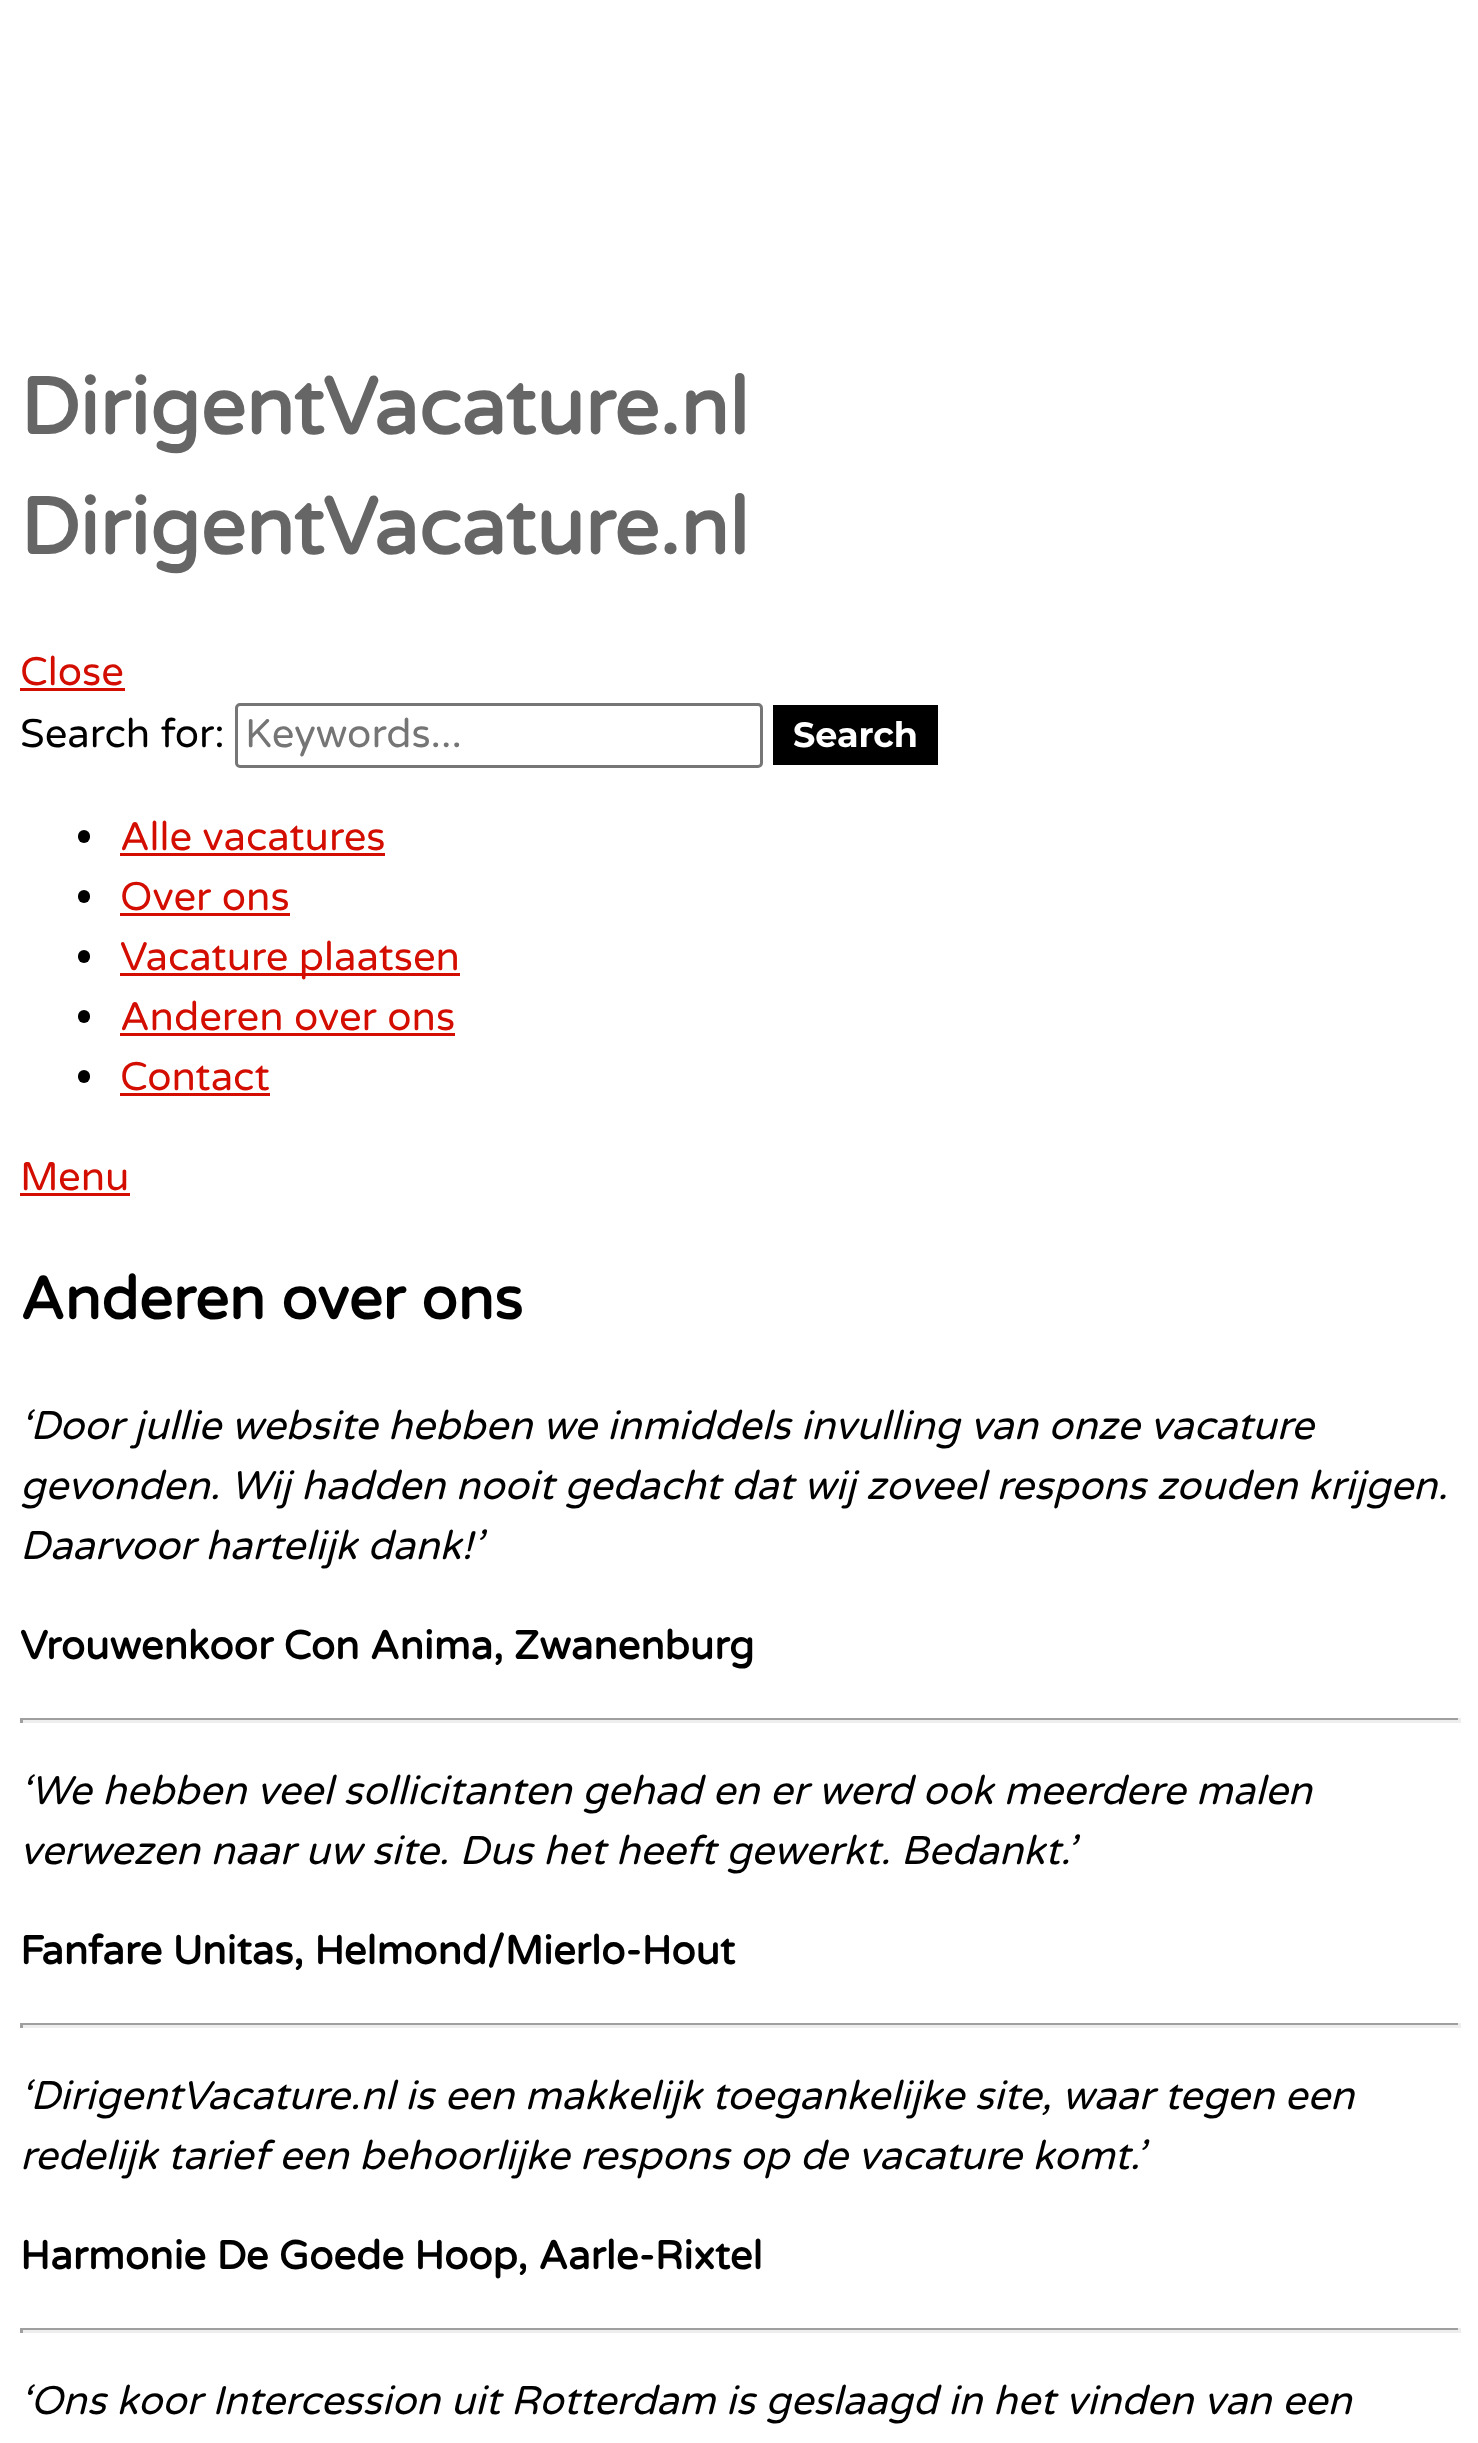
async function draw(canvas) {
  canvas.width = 1478
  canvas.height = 2443
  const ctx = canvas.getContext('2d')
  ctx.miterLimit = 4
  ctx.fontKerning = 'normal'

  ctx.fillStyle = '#fff'
  ctx.fillRect(0, 0, 1478, 2443)
  ctx.font = 'bold 80px Varela Round'
  ctx.fillStyle = '#666'
  ctx.fillText('DirigentVacature.nl', 20, 434)
  ctx.fillText('DirigentVacature.nl', 20, 554)
  ctx.font = '40px Varela Round'
  ctx.fillStyle = '#d30e00'
  ctx.fillText('Close', 20, 685)
  ctx.fillRect(20, 688, 105, 3)
  ctx.fillStyle = '#000'
  ctx.fillText('Search for:', 20, 747)
  ctx.beginPath()
  ctx.roundRect(236.5, 704.5, 525, 62, 3.5)
  ctx.strokeStyle = '#767676'
  ctx.lineWidth = 3
  ctx.stroke()
  ctx.fillStyle = '#757575'
  ctx.fillText('Keywords...', 245, 747)
  ctx.fillStyle = '#000'
  ctx.fillRect(773, 705, 165, 60)
  ctx.font = 'bold 35px Montserrat'
  ctx.fillStyle = '#fff'
  ctx.fillText('Search', 793, 747)
  ctx.fillStyle = '#000'
  ctx.beginPath()
  ctx.roundRect(78, 830, 12, 13, 6)
  ctx.fill()
  ctx.font = '40px Varela Round'
  ctx.fillStyle = '#d30e00'
  ctx.fillText('Alle vacatures', 120, 850)
  ctx.fillRect(120, 853, 265, 3)
  ctx.fillStyle = '#000'
  ctx.beginPath()
  ctx.roundRect(78, 890, 12, 13, 6)
  ctx.fill()
  ctx.fillStyle = '#d30e00'
  ctx.fillText('Over ons', 120, 910)
  ctx.fillRect(120, 913, 170, 3)
  ctx.fillStyle = '#000'
  ctx.beginPath()
  ctx.roundRect(78, 950, 12, 13, 6)
  ctx.fill()
  ctx.fillStyle = '#d30e00'
  ctx.fillRect(120, 973, 340, 3)
  ctx.fillText('Vacature plaatsen', 120, 970)
  ctx.fillStyle = '#000'
  ctx.beginPath()
  ctx.roundRect(78, 1010, 12, 13, 6)
  ctx.fill()
  ctx.fillStyle = '#d30e00'
  ctx.fillText('Anderen over ons', 120, 1030)
  ctx.fillRect(120, 1033, 335, 3)
  ctx.fillStyle = '#000'
  ctx.beginPath()
  ctx.roundRect(78, 1070, 12, 13, 6)
  ctx.fill()
  ctx.fillStyle = '#d30e00'
  ctx.fillText('Contact', 120, 1090)
  ctx.fillRect(120, 1093, 150, 3)
  ctx.fillText('Menu', 20, 1190)
  ctx.fillRect(20, 1193, 110, 3)
  ctx.font = 'bold 60px Varela Round'
  ctx.fillStyle = '#000'
  ctx.fillText('Anderen over ons', 20, 1319)
  ctx.font = 'italic 40px Varela Round'
  ctx.fillText('‘Door jullie website hebben we inmiddels invulling van onze vacature', 20, 1439)
  ctx.fillText('gevonden. Wij hadden nooit gedacht dat wij zoveel respons zouden krijgen.', 20, 1499)
  ctx.fillText('Daarvoor hartelijk dank!’', 20, 1559)
  ctx.font = 'bold 40px Varela Round'
  ctx.fillText('Vrouwenkoor Con Anima, Zwanenburg', 20, 1659)
  ctx.fillStyle = '#9f9f9f'
  ctx.fillRect(20, 1718, 1440, 2)
  ctx.fillStyle = '#eee'
  ctx.fillRect(1458, 1718, 3, 5)
  ctx.fillRect(20, 1720, 1440, 3)
  ctx.fillStyle = '#9f9f9f'
  ctx.fillRect(20, 1718, 3, 5)
  ctx.font = 'italic 40px Varela Round'
  ctx.fillStyle = '#000'
  ctx.fillText('‘We hebben veel sollicitanten gehad en er werd ook meerdere malen', 20, 1804)
  ctx.fillText('verwezen naar uw site. Dus het heeft gewerkt. Bedankt.’', 20, 1864)
  ctx.font = 'bold 40px Varela Round'
  ctx.fillText('Fanfare Unitas, Helmond/Mierlo-Hout', 20, 1964)
  ctx.fillStyle = '#9f9f9f'
  ctx.fillRect(20, 2023, 1440, 2)
  ctx.fillStyle = '#eee'
  ctx.fillRect(1458, 2023, 3, 5)
  ctx.fillRect(20, 2025, 1440, 3)
  ctx.fillStyle = '#9f9f9f'
  ctx.fillRect(20, 2023, 3, 5)
  ctx.font = 'italic 40px Varela Round'
  ctx.fillStyle = '#000'
  ctx.fillText('‘DirigentVacature.nl is een makkelijk toegankelijke site, waar tegen een', 20, 2109)
  ctx.fillText('redelijk tarief een behoorlijke respons op de vacature komt.’', 20, 2169)
  ctx.font = 'bold 40px Varela Round'
  ctx.fillText('Harmonie De Goede Hoop, Aarle-Rixtel', 20, 2269)
  ctx.fillStyle = '#9f9f9f'
  ctx.fillRect(20, 2328, 1440, 2)
  ctx.fillStyle = '#eee'
  ctx.fillRect(1458, 2328, 3, 5)
  ctx.fillRect(20, 2330, 1440, 3)
  ctx.fillStyle = '#9f9f9f'
  ctx.fillRect(20, 2328, 3, 5)
  ctx.font = 'italic 40px Varela Round'
  ctx.fillStyle = '#000'
  ctx.fillText('‘Ons koor Intercession uit Rotterdam is geslaagd in het vinden van een', 20, 2414)
}

draw(document.querySelector('canvas'))
